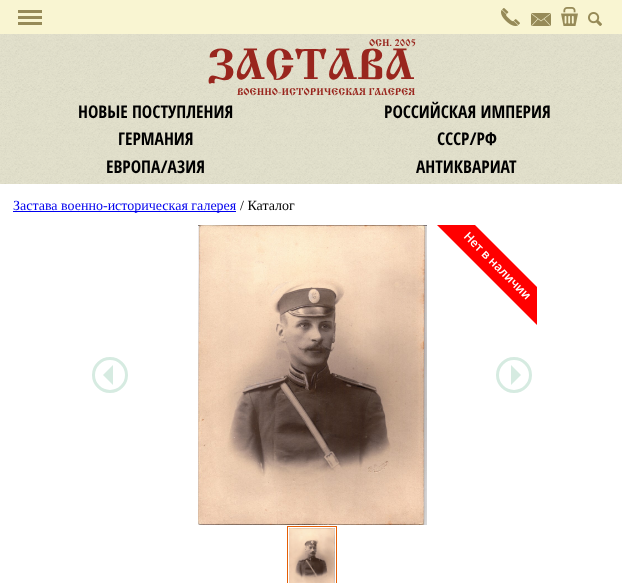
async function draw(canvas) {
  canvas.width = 622
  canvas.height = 583
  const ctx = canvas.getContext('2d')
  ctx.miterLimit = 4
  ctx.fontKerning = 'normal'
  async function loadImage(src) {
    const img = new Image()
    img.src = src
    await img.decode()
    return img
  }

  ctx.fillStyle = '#fff'
  ctx.fillRect(0, 0, 622, 583)
  ctx.fillStyle = '#f9f5d2'
  ctx.fillRect(0, 0, 622, 34)
  ctx.fillStyle = '#968a58'
  ctx.fillRect(18, 10, 24, 15)
  ctx.fillStyle = '#f9f5d2'
  ctx.fillRect(18, 13, 24, 3)
  ctx.fillRect(18, 19, 24, 3)
  ctx.drawImage(await loadImage('image0.png'), 501, 8, 19, 18)
  ctx.drawImage(await loadImage('image1.png'), 531, 13, 20, 13)
  ctx.drawImage(await loadImage('image2.png'), 561, 7, 17, 19)
  ctx.drawImage(await loadImage('image3.png'), 588, 12, 14, 14)
  ctx.drawImage(await loadImage('image4.png'), 0, 34, 622, 150)
  ctx.font = 'bold 10.3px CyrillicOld'
  ctx.fillStyle = '#99261e'
  ctx.fillText('ОСН. 2005', 369, 46)
  ctx.font = 'bold 45px CyrillicOld'
  ctx.fillText('ЗАСТАВА', 208, 79)
  ctx.font = 'bold 10.3px CyrillicOld'
  ctx.fillText('ВОЕННО-ИСТОРИЧЕСКАЯ ГАЛЕРЕЯ', 237, 95)
  ctx.font = 'bold 17.5px Open Sans Condensed'
  ctx.fillStyle = '#000'
  ctx.fillText('НОВЫЕ ПОСТУПЛЕНИЯ', 78, 118)
  ctx.fillText('РОССИЙСКАЯ ИМПЕРИЯ', 384, 118)
  ctx.fillText('ГЕРМАНИЯ', 118, 145)
  ctx.fillText('СССР/РФ', 437, 145)
  ctx.fillText('ЕВРОПА/АЗИЯ', 106, 173)
  ctx.fillText('АНТИКВАРИАТ', 416, 173)
  ctx.fillStyle = '#00e'
  ctx.fillRect(13, 211, 223, 1)
  ctx.font = '14px Liberation Serif'
  ctx.fillText('Застава военно-историческая галерея', 13, 210)
  ctx.fillStyle = '#000'
  ctx.fillText('/ Каталог', 240, 210)
  ctx.beginPath()
  ctx.arc(110, 375, 16.5, 0, 2 * Math.PI)
  ctx.strokeStyle = '#d6ebe1'
  ctx.lineWidth = 3
  ctx.stroke()
  ctx.fillStyle = '#d6ebe1'
  ctx.beginPath()
  ctx.moveTo(113, 365)
  ctx.lineTo(113, 385)
  ctx.lineTo(103, 375)
  ctx.closePath()
  ctx.fill()
  ctx.drawImage(await loadImage('image5.png'), 198, 225, 229, 300)
  ctx.beginPath()
  ctx.arc(514, 375, 16.5, 0, 2 * Math.PI)
  ctx.stroke()
  ctx.beginPath()
  ctx.moveTo(511, 385)
  ctx.lineTo(511, 365)
  ctx.lineTo(521, 375)
  ctx.closePath()
  ctx.fill()
  ctx.save()
  ctx.beginPath()
  ctx.rect(87, 225, 450, 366)
  ctx.clip()
  ctx.fillStyle = '#f00'
  ctx.beginPath()
  ctx.moveTo(450, 200)
  ctx.lineTo(563, 313)
  ctx.lineTo(544, 332)
  ctx.lineTo(431, 219)
  ctx.closePath()
  ctx.fill()
  ctx.restore()
  ctx.font = '600 12px Open Sans'
  ctx.fillStyle = '#fff'
  ctx.save()
  ctx.translate(463, 237)
  ctx.rotate(45 * Math.PI / 180)
  ctx.fillText('Нет в наличии', 0, 0)
  ctx.restore()
  ctx.drawImage(await loadImage('image6.png'), 289, 528, 46, 55)
  ctx.strokeStyle = '#e55e04'
  ctx.lineWidth = 1
  ctx.strokeRect(287.5, 526.5, 49, 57)
}

draw(document.querySelector('canvas'))
